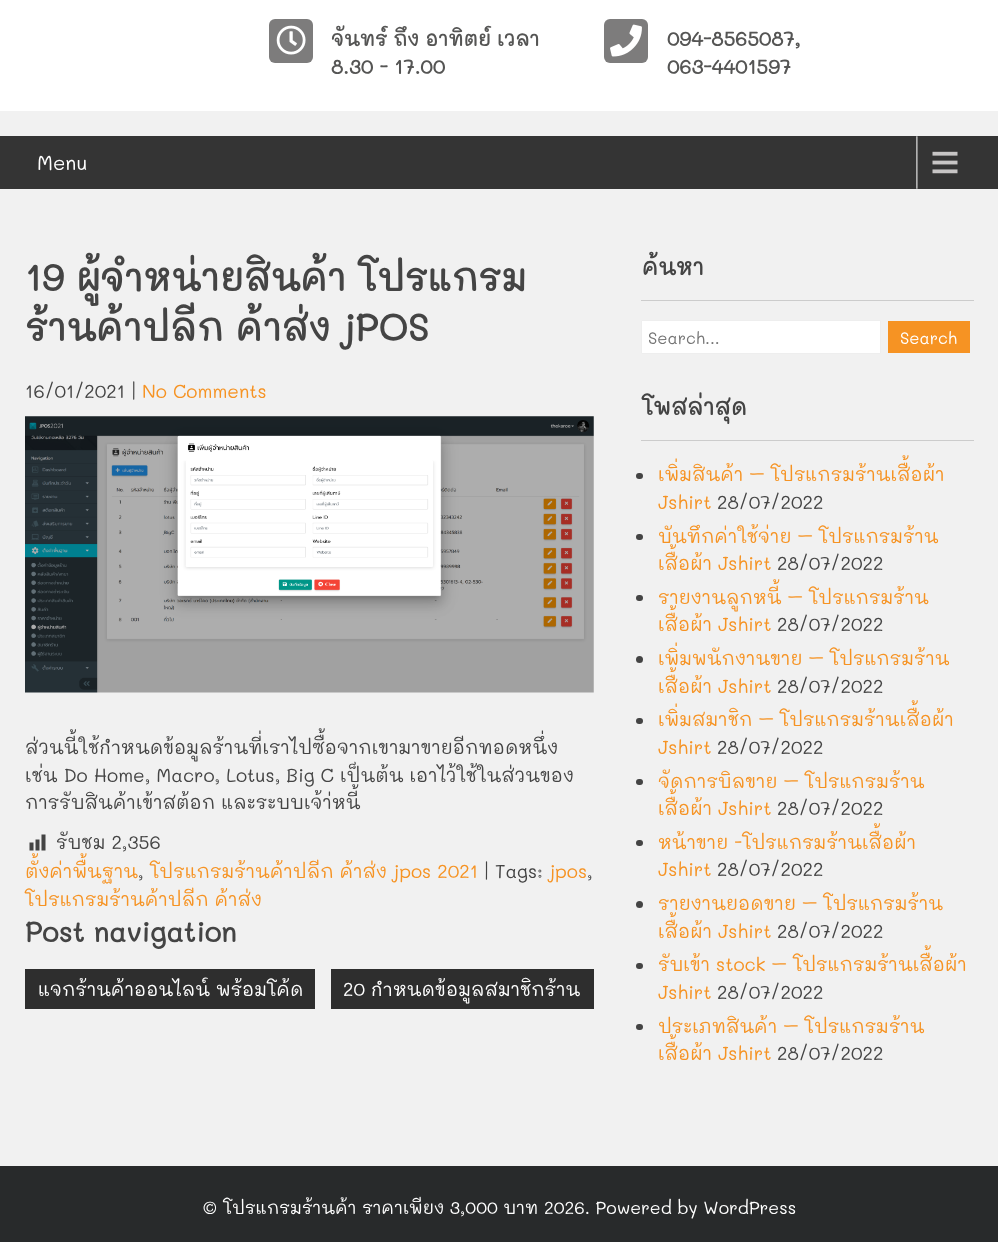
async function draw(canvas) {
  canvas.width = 998
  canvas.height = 1242
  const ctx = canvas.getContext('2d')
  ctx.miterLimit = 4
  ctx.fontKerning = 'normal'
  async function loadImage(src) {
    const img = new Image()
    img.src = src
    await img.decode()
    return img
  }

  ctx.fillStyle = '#f1f1f1'
  ctx.fillRect(0, 0, 998, 1242)
  ctx.fillStyle = '#fff'
  ctx.fillRect(0, 0, 998, 111)
  ctx.fillStyle = '#7d7c7c'
  ctx.beginPath()
  ctx.roundRect(269, 19, 44, 44, 6)
  ctx.fill()
  ctx.drawImage(await loadImage('image0.png'), 276, 25, 30, 30)
  ctx.font = 'bold 20px Mali'
  ctx.fillStyle = '#555554'
  ctx.fillText('จันทร์ ถึง อาทิตย์ เวลา', 331, 46)
  ctx.fillText('8.30 - 17.00', 331, 74)
  ctx.fillStyle = '#7d7c7c'
  ctx.beginPath()
  ctx.roundRect(604, 19, 44, 44, 6)
  ctx.fill()
  ctx.drawImage(await loadImage('image1.png'), 610, 24, 32, 33)
  ctx.fillStyle = '#555554'
  ctx.fillText('094-8565087,', 667, 46)
  ctx.fillText('063-4401597', 667, 74)
  ctx.fillStyle = '#343434'
  ctx.fillRect(0, 136, 998, 53)
  ctx.drawImage(await loadImage('image2.png'), 916, 136, 42, 53)
  ctx.font = '20px Mali'
  ctx.fillStyle = '#fff'
  ctx.fillText('Menu', 37, 170)
  ctx.font = 'bold 37.5px Mali'
  ctx.fillStyle = '#444'
  ctx.fillText('19 ผู้จำหน่ายสินค้า โปรแกรม', 25, 291)
  ctx.fillText('ร้านค้าปลีก ค้าส่ง jPOS', 25, 341)
  ctx.font = '18.75px Mali'
  ctx.fillText('16/01/2021 |', 25, 398)
  ctx.fillStyle = '#f69323'
  ctx.fillText('No Comments', 142, 398)
  ctx.drawImage(await loadImage('image3.png'), 25, 416, 569, 277)
  ctx.fillStyle = '#444'
  ctx.fillText('ส่วนนี้ใช้กำหนดข้อมูลร้านที่เราไปซื้อจากเขามาขายอีกทอดหนึ่ง', 25, 754)
  ctx.fillText('เช่น Do Home, Macro, Lotus, Big C เป็นต้น เอาไว้ใช้ในส่วนของ', 25, 782)
  ctx.fillText('การรับสินค้าเข้าสต้อก และระบบเจ้า่หนี้', 25, 809)
  ctx.drawImage(await loadImage('image4.png'), 29, 834, 17, 17)
  ctx.fillText('รับชม 2,356', 56, 849)
  ctx.fillStyle = '#f69323'
  ctx.fillText('ตั้งค่าพื้นฐาน', 25, 878)
  ctx.fillStyle = '#444'
  ctx.fillText(',', 138, 878)
  ctx.fillStyle = '#f69323'
  ctx.fillText('โปรแกรมร้านค้าปลีก ค้าส่ง jpos 2021', 150, 878)
  ctx.fillStyle = '#444'
  ctx.fillText('| Tags:', 484, 878)
  ctx.fillStyle = '#f69323'
  ctx.fillText('jpos', 549, 878)
  ctx.fillStyle = '#444'
  ctx.fillText(',', 587, 878)
  ctx.fillStyle = '#f69323'
  ctx.fillText('โปรแกรมร้านค้าปลีก ค้าส่ง', 25, 906)
  ctx.font = 'bold 28px Mali'
  ctx.fillStyle = '#444'
  ctx.fillText('Post navigation', 25, 942)
  ctx.fillStyle = '#2e2e2e'
  ctx.fillRect(25, 969, 290, 40)
  ctx.font = '18.75px Mali'
  ctx.fillStyle = '#fff'
  ctx.fillText('แจกร้านค้าออนไลน์ พร้อมโค้ด', 38, 996)
  ctx.fillStyle = '#2e2e2e'
  ctx.fillRect(331, 969, 263, 40)
  ctx.fillStyle = '#fff'
  ctx.fillText('20 กำหนดข้อมูลสมาชิกร้าน', 343, 996)
  ctx.fillStyle = '#ccc'
  ctx.fillRect(641, 300, 333, 1)
  ctx.font = 'bold 22.5px Mali'
  ctx.fillStyle = '#444'
  ctx.fillText('ค้นหา', 642, 275)
  ctx.fillStyle = '#fff'
  ctx.beginPath()
  ctx.rect(641.5, 320.5, 239, 33)
  ctx.fill()
  ctx.strokeStyle = '#eee'
  ctx.stroke()
  ctx.font = '16.5px Mali'
  ctx.fillStyle = '#757575'
  ctx.fillText('Search...', 648, 344)
  ctx.fillStyle = '#f69323'
  ctx.fillRect(888, 321, 82, 32)
  ctx.fillStyle = '#fff'
  ctx.fillText('Search', 900, 344)
  ctx.fillStyle = '#ccc'
  ctx.fillRect(641, 440, 333, 1)
  ctx.font = 'bold 22.5px Mali'
  ctx.fillStyle = '#444'
  ctx.fillText('โพสล่าสุด', 642, 415)
  ctx.beginPath()
  ctx.roundRect(636, 473, 7, 6, 3)
  ctx.fill()
  ctx.font = '18.75px Mali'
  ctx.fillStyle = '#f69323'
  ctx.fillText('เพิ่มสินค้า – โปรแกรมร้านเสื้อผ้า', 658, 481)
  ctx.fillText('Jshirt', 658, 509)
  ctx.fillStyle = '#444'
  ctx.fillText('28/07/2022', 717, 509)
  ctx.beginPath()
  ctx.roundRect(636, 534, 7, 6, 3)
  ctx.fill()
  ctx.fillStyle = '#f69323'
  ctx.fillText('บันทึกค่าใช้จ่าย – โปรแกรมร้าน', 658, 543)
  ctx.fillText('เสื้อผ้า Jshirt', 658, 570)
  ctx.fillStyle = '#444'
  ctx.fillText('28/07/2022', 777, 570)
  ctx.beginPath()
  ctx.roundRect(636, 595, 7, 6, 3)
  ctx.fill()
  ctx.fillStyle = '#f69323'
  ctx.fillText('รายงานลูกหนี้ – โปรแกรมร้าน', 658, 604)
  ctx.fillText('เสื้อผ้า Jshirt', 658, 631)
  ctx.fillStyle = '#444'
  ctx.fillText('28/07/2022', 777, 631)
  ctx.beginPath()
  ctx.arc(639.5, 659.5, 3.5, 0, 2 * Math.PI)
  ctx.fill()
  ctx.fillStyle = '#f69323'
  ctx.fillText('เพิ่มพนักงานขาย – โปรแกรมร้าน', 658, 665)
  ctx.fillText('เสื้อผ้า Jshirt', 658, 693)
  ctx.fillStyle = '#444'
  ctx.fillText('28/07/2022', 777, 693)
  ctx.beginPath()
  ctx.roundRect(636, 718, 7, 6, 3)
  ctx.fill()
  ctx.fillStyle = '#f69323'
  ctx.fillText('เพิ่มสมาชิก – โปรแกรมร้านเสื้อผ้า', 658, 726)
  ctx.fillText('Jshirt', 658, 754)
  ctx.fillStyle = '#444'
  ctx.fillText('28/07/2022', 717, 754)
  ctx.beginPath()
  ctx.roundRect(636, 779, 7, 6, 3)
  ctx.fill()
  ctx.fillStyle = '#f69323'
  ctx.fillText('จัดการบิลขาย – โปรแกรมร้าน', 658, 788)
  ctx.fillText('เสื้อผ้า Jshirt', 658, 815)
  ctx.fillStyle = '#444'
  ctx.fillText('28/07/2022', 777, 815)
  ctx.beginPath()
  ctx.roundRect(636, 840, 7, 6, 3)
  ctx.fill()
  ctx.fillStyle = '#f69323'
  ctx.fillText('หน้าขาย -โปรแกรมร้านเสื้อผ้า', 658, 849)
  ctx.fillText('Jshirt', 658, 876)
  ctx.fillStyle = '#444'
  ctx.fillText('28/07/2022', 717, 876)
  ctx.beginPath()
  ctx.arc(639.5, 904.5, 3.5, 0, 2 * Math.PI)
  ctx.fill()
  ctx.fillStyle = '#f69323'
  ctx.fillText('รายงานยอดขาย – โปรแกรมร้าน', 658, 910)
  ctx.fillText('เสื้อผ้า Jshirt', 658, 938)
  ctx.fillStyle = '#444'
  ctx.fillText('28/07/2022', 777, 938)
  ctx.beginPath()
  ctx.roundRect(636, 963, 7, 6, 3)
  ctx.fill()
  ctx.fillStyle = '#f69323'
  ctx.fillText('รับเข้า stock – โปรแกรมร้านเสื้อผ้า', 658, 971)
  ctx.fillText('Jshirt', 658, 999)
  ctx.fillStyle = '#444'
  ctx.fillText('28/07/2022', 717, 999)
  ctx.beginPath()
  ctx.roundRect(636, 1024, 7, 6, 3)
  ctx.fill()
  ctx.fillStyle = '#f69323'
  ctx.fillText('ประเภทสินค้า – โปรแกรมร้าน', 658, 1033)
  ctx.fillText('เสื้อผ้า Jshirt', 658, 1060)
  ctx.fillStyle = '#444'
  ctx.fillText('28/07/2022', 777, 1060)
  ctx.fillStyle = '#282a2b'
  ctx.fillRect(0, 1166, 998, 76)
  ctx.font = '17.5px Mali'
  ctx.fillStyle = '#fff'
  ctx.fillText('© โปรแกรมร้านค้า ราคาเพียง 3,000 บาท 2026. Powered by WordPress', 202, 1214)
}

draw(document.querySelector('canvas'))
